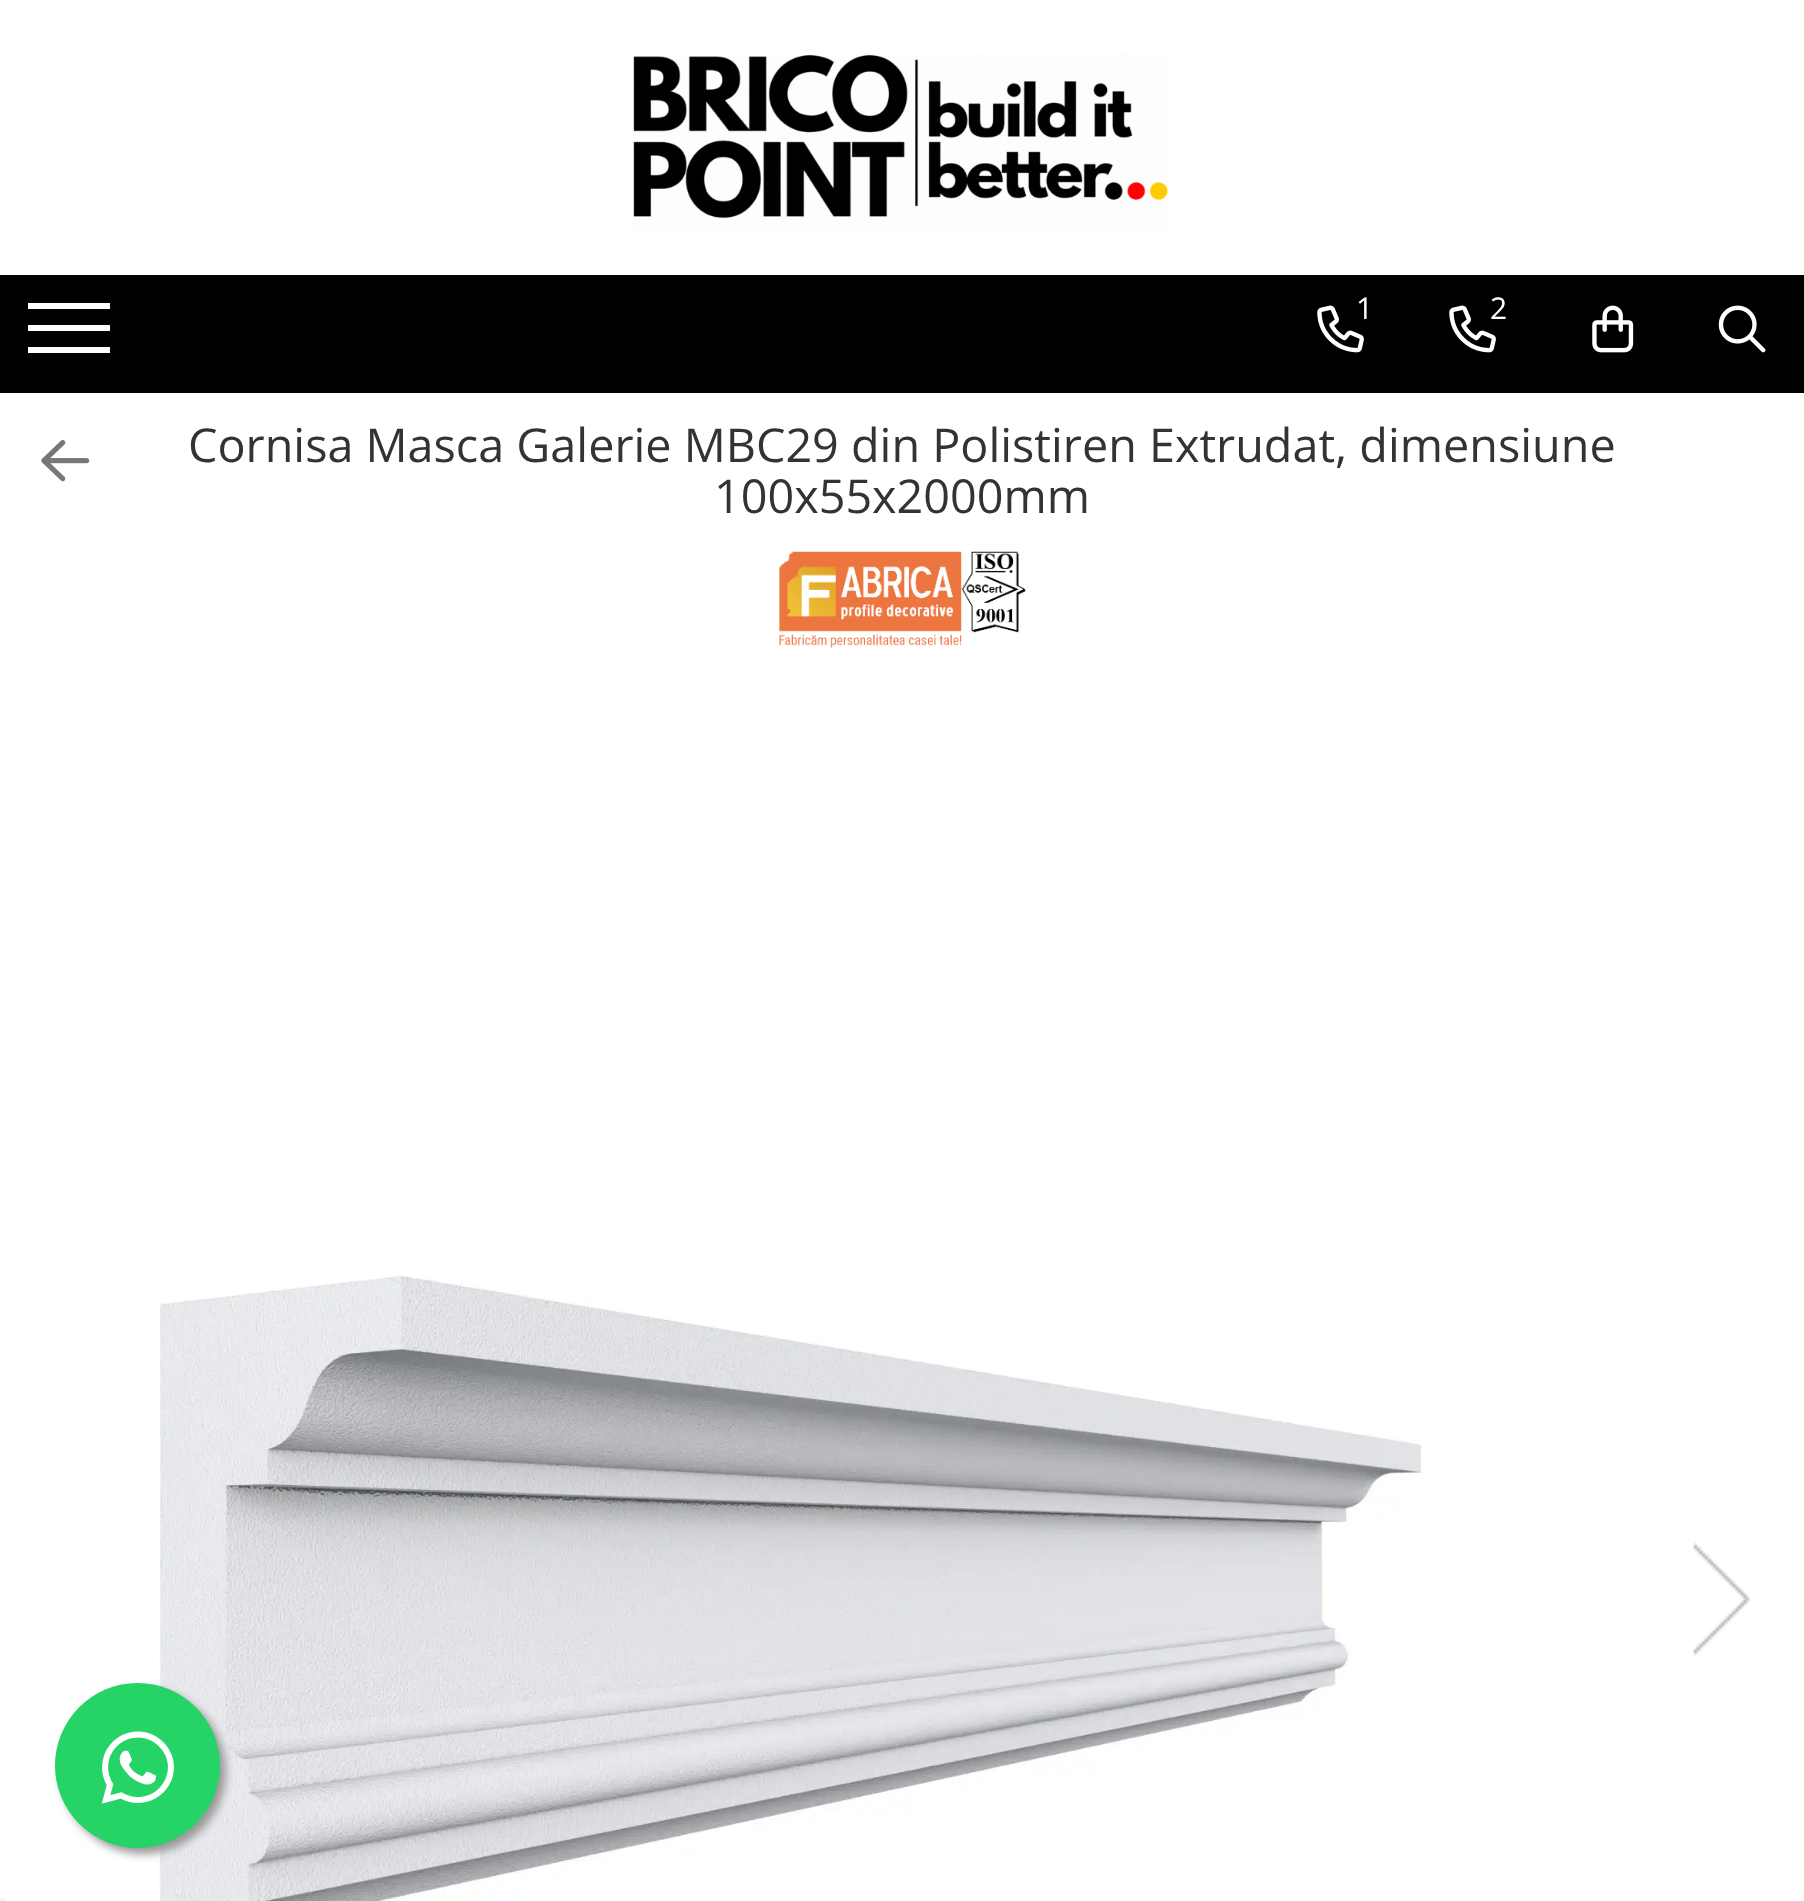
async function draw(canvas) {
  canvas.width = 1804
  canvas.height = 1901
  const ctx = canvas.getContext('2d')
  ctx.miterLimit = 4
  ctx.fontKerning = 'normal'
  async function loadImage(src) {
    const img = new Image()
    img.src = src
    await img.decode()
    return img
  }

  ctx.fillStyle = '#fff'
  ctx.fillRect(0, 0, 1804, 1901)
  ctx.drawImage(await loadImage('image0.png'), 633, 54, 537, 176)
  ctx.fillStyle = '#000'
  ctx.fillRect(0, 275, 1804, 118)
  ctx.fillStyle = '#fff'
  ctx.fillRect(28, 325, 82, 6)
  ctx.fillRect(28, 303, 82, 6)
  ctx.fillRect(28, 347, 82, 6)
  ctx.drawImage(await loadImage('image1.png'), 1317, 305, 47, 48)
  ctx.font = '30px Open Sans'
  ctx.fillText('1', 1356, 319)
  ctx.drawImage(await loadImage('image1.png'), 1449, 305, 47, 48)
  ctx.fillText('2', 1490, 319)
  ctx.drawImage(await loadImage('image2.png'), 1592, 305, 42, 48)
  ctx.drawImage(await loadImage('image3.png'), 1718, 305, 48, 48)
  ctx.drawImage(await loadImage('image4.png'), 41, 440, 49, 42)
  ctx.font = '46.75px Open Sans'
  ctx.fillStyle = '#333'
  ctx.fillText('Cornisa Masca Galerie MBC29 din Polistiren Extrudat, dimensiune', 188, 462)
  ctx.fillText('100x55x2000mm', 714, 513)
  ctx.drawImage(await loadImage('image5.png'), 779, 551, 247, 97)
  ctx.drawImage(await loadImage('image6.png'), 159, 1275, 1263, 626)
  ctx.drawImage(await loadImage('image7.png'), 1693, 1542, 57, 114)
  ctx.fillStyle = '#999'
  ctx.filter = 'blur(4px)'
  ctx.beginPath()
  ctx.roundRect(61, 1689, 165, 165, 82.5)
  ctx.fill()
  ctx.filter = 'none'
  ctx.fillStyle = '#25d366'
  ctx.beginPath()
  ctx.arc(137.5, 1765.5, 82.5, 0, 2 * Math.PI)
  ctx.fill()
  ctx.drawImage(await loadImage('image8.png'), 101, 1731, 73, 73)
  ctx.fillStyle = '#f5f5f5'
  ctx.fillRect(0, 1898, 6, 3)
}

draw(document.querySelector('canvas'))
